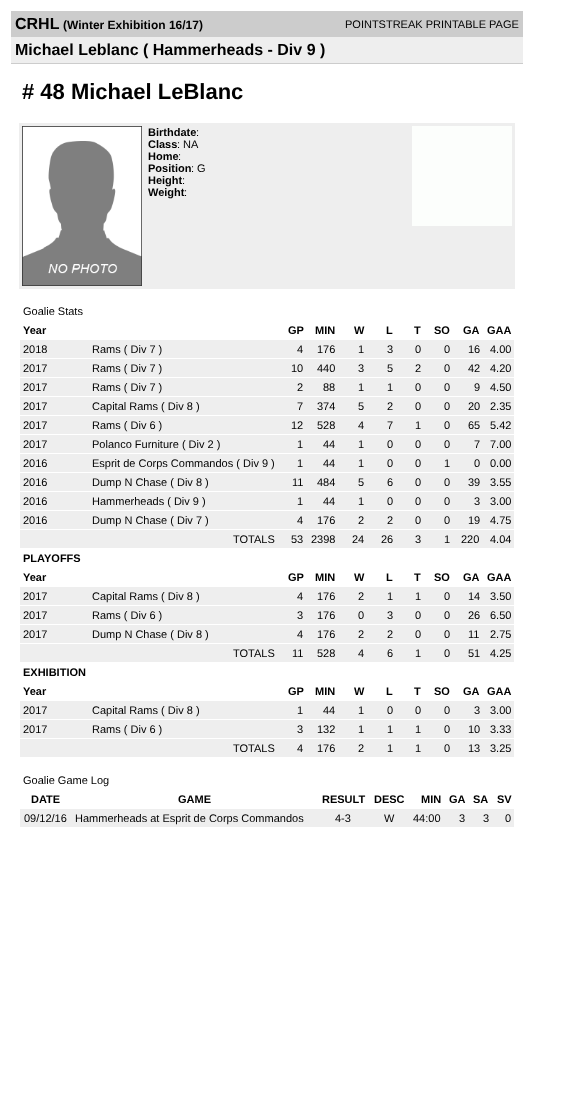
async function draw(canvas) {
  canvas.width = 579
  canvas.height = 1105
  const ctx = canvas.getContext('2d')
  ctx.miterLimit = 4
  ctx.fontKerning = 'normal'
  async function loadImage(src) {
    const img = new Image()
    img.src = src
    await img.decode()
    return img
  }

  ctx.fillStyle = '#fff'
  ctx.fillRect(0, 0, 579, 1105)
  ctx.fillStyle = '#ccc'
  ctx.fillRect(11, 11, 512, 26)
  ctx.font = 'bold 16px Liberation Sans'
  ctx.fillStyle = '#000'
  ctx.fillText('CRHL', 15, 29)
  ctx.font = 'bold 12px Liberation Sans'
  ctx.fillText('(Winter Exhibition 16/17)', 63, 29)
  ctx.font = '11px Liberation Sans'
  ctx.fillText('POINTSTREAK PRINTABLE PAGE', 345, 28)
  ctx.fillStyle = '#eee'
  ctx.fillRect(11, 37, 512, 26)
  ctx.font = 'bold 16px Liberation Sans'
  ctx.fillStyle = '#000'
  ctx.fillText('Michael Leblanc ( Hammerheads - Div 9 )', 15, 55)
  ctx.fillStyle = '#ccc'
  ctx.fillRect(11, 63, 512, 1)
  ctx.font = 'bold 22px Liberation Sans'
  ctx.fillStyle = '#000'
  ctx.fillText('# 48 Michael LeBlanc', 22, 99)
  ctx.fillStyle = '#eee'
  ctx.fillRect(19, 123, 496, 166)
  ctx.drawImage(await loadImage('image0.png'), 22, 126, 120, 160)
  ctx.font = 'bold 11px Liberation Sans'
  ctx.fillStyle = '#000'
  ctx.fillText('Birthdate', 148, 136)
  ctx.font = '11px Liberation Sans'
  ctx.fillText(':', 196, 136)
  ctx.font = 'bold 11px Liberation Sans'
  ctx.fillText('Class', 148, 148)
  ctx.font = '11px Liberation Sans'
  ctx.fillText(': NA', 177, 148)
  ctx.font = 'bold 11px Liberation Sans'
  ctx.fillText('Home', 148, 160)
  ctx.font = '11px Liberation Sans'
  ctx.fillText(':', 178, 160)
  ctx.font = 'bold 11px Liberation Sans'
  ctx.fillText('Position', 148, 172)
  ctx.font = '11px Liberation Sans'
  ctx.fillText(': G', 191, 172)
  ctx.font = 'bold 11px Liberation Sans'
  ctx.fillText('Height', 148, 184)
  ctx.font = '11px Liberation Sans'
  ctx.fillText(':', 182, 184)
  ctx.font = 'bold 11px Liberation Sans'
  ctx.fillText('Weight', 148, 196)
  ctx.font = '11px Liberation Sans'
  ctx.fillText(':', 184, 196)
  ctx.fillStyle = '#fcfefc'
  ctx.fillRect(412, 126, 100, 100)
  ctx.fillStyle = '#000'
  ctx.fillText('Goalie Stats', 23, 315)
  ctx.font = 'bold 11px Liberation Sans'
  ctx.fillText('Year', 23, 334)
  ctx.fillText('GP', 288, 334)
  ctx.fillText('MIN', 315, 334)
  ctx.fillText('W', 354, 334)
  ctx.fillText('L', 386, 334)
  ctx.fillText('T', 414, 334)
  ctx.fillText('SO', 434, 334)
  ctx.fillText('GA', 463, 334)
  ctx.fillText('GAA', 487, 334)
  ctx.fillStyle = '#eee'
  ctx.fillRect(20, 340, 494, 18)
  ctx.font = '11px Liberation Sans'
  ctx.fillStyle = '#000'
  ctx.fillText('2018', 23, 353)
  ctx.fillText('Rams ( Div 7 )', 92, 353)
  ctx.fillText('4', 297, 353)
  ctx.fillText('176', 317, 353)
  ctx.fillText('1', 358, 353)
  ctx.fillText('3', 387, 353)
  ctx.fillText('0', 415, 353)
  ctx.fillText('0', 444, 353)
  ctx.fillText('16', 468, 353)
  ctx.fillText('4.00', 490, 353)
  ctx.fillStyle = '#eee'
  ctx.fillRect(20, 359, 494, 18)
  ctx.fillStyle = '#000'
  ctx.fillText('2017', 23, 372)
  ctx.fillText('Rams ( Div 7 )', 92, 372)
  ctx.fillText('10', 291, 372)
  ctx.fillText('440', 317, 372)
  ctx.fillText('3', 358, 372)
  ctx.fillText('5', 387, 372)
  ctx.fillText('2', 415, 372)
  ctx.fillText('0', 444, 372)
  ctx.fillText('42', 468, 372)
  ctx.fillText('4.20', 490, 372)
  ctx.fillStyle = '#eee'
  ctx.fillRect(20, 378, 494, 18)
  ctx.fillStyle = '#000'
  ctx.fillText('2017', 23, 391)
  ctx.fillText('Rams ( Div 7 )', 92, 391)
  ctx.fillText('2', 297, 391)
  ctx.fillText('88', 323, 391)
  ctx.fillText('1', 358, 391)
  ctx.fillText('1', 387, 391)
  ctx.fillText('0', 415, 391)
  ctx.fillText('0', 444, 391)
  ctx.fillText('9', 474, 391)
  ctx.fillText('4.50', 490, 391)
  ctx.fillStyle = '#eee'
  ctx.fillRect(20, 397, 494, 18)
  ctx.fillStyle = '#000'
  ctx.fillText('2017', 23, 410)
  ctx.fillText('Capital Rams ( Div 8 )', 92, 410)
  ctx.fillText('7', 297, 410)
  ctx.fillText('374', 317, 410)
  ctx.fillText('5', 358, 410)
  ctx.fillText('2', 387, 410)
  ctx.fillText('0', 415, 410)
  ctx.fillText('0', 444, 410)
  ctx.fillText('20', 468, 410)
  ctx.fillText('2.35', 490, 410)
  ctx.fillStyle = '#eee'
  ctx.fillRect(20, 416, 494, 18)
  ctx.fillStyle = '#000'
  ctx.fillText('2017', 23, 429)
  ctx.fillText('Rams ( Div 6 )', 92, 429)
  ctx.fillText('12', 291, 429)
  ctx.fillText('528', 317, 429)
  ctx.fillText('4', 358, 429)
  ctx.fillText('7', 387, 429)
  ctx.fillText('1', 415, 429)
  ctx.fillText('0', 444, 429)
  ctx.fillText('65', 468, 429)
  ctx.fillText('5.42', 490, 429)
  ctx.fillStyle = '#eee'
  ctx.fillRect(20, 435, 494, 18)
  ctx.fillStyle = '#000'
  ctx.fillText('2017', 23, 448)
  ctx.fillText('Polanco Furniture ( Div 2 )', 92, 448)
  ctx.fillText('1', 297, 448)
  ctx.fillText('44', 323, 448)
  ctx.fillText('1', 358, 448)
  ctx.fillText('0', 387, 448)
  ctx.fillText('0', 415, 448)
  ctx.fillText('0', 444, 448)
  ctx.fillText('7', 474, 448)
  ctx.fillText('7.00', 490, 448)
  ctx.fillStyle = '#eee'
  ctx.fillRect(20, 454, 494, 18)
  ctx.fillStyle = '#000'
  ctx.fillText('2016', 23, 467)
  ctx.fillText('Esprit de Corps Commandos ( Div 9 )', 92, 467)
  ctx.fillText('1', 297, 467)
  ctx.fillText('44', 323, 467)
  ctx.fillText('1', 358, 467)
  ctx.fillText('0', 387, 467)
  ctx.fillText('0', 415, 467)
  ctx.fillText('1', 444, 467)
  ctx.fillText('0', 474, 467)
  ctx.fillText('0.00', 490, 467)
  ctx.fillStyle = '#eee'
  ctx.fillRect(20, 473, 494, 18)
  ctx.fillStyle = '#000'
  ctx.fillText('2016', 23, 486)
  ctx.fillText('Dump N Chase ( Div 8 )', 92, 486)
  ctx.fillText('11', 292, 486)
  ctx.fillText('484', 317, 486)
  ctx.fillText('5', 358, 486)
  ctx.fillText('6', 387, 486)
  ctx.fillText('0', 415, 486)
  ctx.fillText('0', 444, 486)
  ctx.fillText('39', 468, 486)
  ctx.fillText('3.55', 490, 486)
  ctx.fillStyle = '#eee'
  ctx.fillRect(20, 492, 494, 18)
  ctx.fillStyle = '#000'
  ctx.fillText('2016', 23, 505)
  ctx.fillText('Hammerheads ( Div 9 )', 92, 505)
  ctx.fillText('1', 297, 505)
  ctx.fillText('44', 323, 505)
  ctx.fillText('1', 358, 505)
  ctx.fillText('0', 387, 505)
  ctx.fillText('0', 415, 505)
  ctx.fillText('0', 444, 505)
  ctx.fillText('3', 474, 505)
  ctx.fillText('3.00', 490, 505)
  ctx.fillStyle = '#eee'
  ctx.fillRect(20, 511, 494, 18)
  ctx.fillStyle = '#000'
  ctx.fillText('2016', 23, 524)
  ctx.fillText('Dump N Chase ( Div 7 )', 92, 524)
  ctx.fillText('4', 297, 524)
  ctx.fillText('176', 317, 524)
  ctx.fillText('2', 358, 524)
  ctx.fillText('2', 387, 524)
  ctx.fillText('0', 415, 524)
  ctx.fillText('0', 444, 524)
  ctx.fillText('19', 468, 524)
  ctx.fillText('4.75', 490, 524)
  ctx.fillStyle = '#eee'
  ctx.fillRect(20, 530, 494, 18)
  ctx.fillStyle = '#000'
  ctx.fillText('TOTALS', 233, 543)
  ctx.fillText('53', 291, 543)
  ctx.fillText('2398', 311, 543)
  ctx.fillText('24', 352, 543)
  ctx.fillText('26', 381, 543)
  ctx.fillText('3', 415, 543)
  ctx.fillText('1', 444, 543)
  ctx.fillText('220', 461, 543)
  ctx.fillText('4.04', 490, 543)
  ctx.font = 'bold 11px Liberation Sans'
  ctx.fillText('PLAYOFFS', 23, 562)
  ctx.fillText('Year', 23, 581)
  ctx.fillText('GP', 288, 581)
  ctx.fillText('MIN', 315, 581)
  ctx.fillText('W', 354, 581)
  ctx.fillText('L', 386, 581)
  ctx.fillText('T', 414, 581)
  ctx.fillText('SO', 434, 581)
  ctx.fillText('GA', 463, 581)
  ctx.fillText('GAA', 487, 581)
  ctx.fillStyle = '#eee'
  ctx.fillRect(20, 587, 494, 18)
  ctx.font = '11px Liberation Sans'
  ctx.fillStyle = '#000'
  ctx.fillText('2017', 23, 600)
  ctx.fillText('Capital Rams ( Div 8 )', 92, 600)
  ctx.fillText('4', 297, 600)
  ctx.fillText('176', 317, 600)
  ctx.fillText('2', 358, 600)
  ctx.fillText('1', 387, 600)
  ctx.fillText('1', 415, 600)
  ctx.fillText('0', 444, 600)
  ctx.fillText('14', 468, 600)
  ctx.fillText('3.50', 490, 600)
  ctx.fillStyle = '#eee'
  ctx.fillRect(20, 606, 494, 18)
  ctx.fillStyle = '#000'
  ctx.fillText('2017', 23, 619)
  ctx.fillText('Rams ( Div 6 )', 92, 619)
  ctx.fillText('3', 297, 619)
  ctx.fillText('176', 317, 619)
  ctx.fillText('0', 358, 619)
  ctx.fillText('3', 387, 619)
  ctx.fillText('0', 415, 619)
  ctx.fillText('0', 444, 619)
  ctx.fillText('26', 468, 619)
  ctx.fillText('6.50', 490, 619)
  ctx.fillStyle = '#eee'
  ctx.fillRect(20, 625, 494, 18)
  ctx.fillStyle = '#000'
  ctx.fillText('2017', 23, 638)
  ctx.fillText('Dump N Chase ( Div 8 )', 92, 638)
  ctx.fillText('4', 297, 638)
  ctx.fillText('176', 317, 638)
  ctx.fillText('2', 358, 638)
  ctx.fillText('2', 387, 638)
  ctx.fillText('0', 415, 638)
  ctx.fillText('0', 444, 638)
  ctx.fillText('11', 468, 638)
  ctx.fillText('2.75', 490, 638)
  ctx.fillStyle = '#eee'
  ctx.fillRect(20, 644, 494, 18)
  ctx.fillStyle = '#000'
  ctx.fillText('TOTALS', 233, 657)
  ctx.fillText('11', 292, 657)
  ctx.fillText('528', 317, 657)
  ctx.fillText('4', 358, 657)
  ctx.fillText('6', 387, 657)
  ctx.fillText('1', 415, 657)
  ctx.fillText('0', 444, 657)
  ctx.fillText('51', 468, 657)
  ctx.fillText('4.25', 490, 657)
  ctx.font = 'bold 11px Liberation Sans'
  ctx.fillText('EXHIBITION', 23, 676)
  ctx.fillText('Year', 23, 695)
  ctx.fillText('GP', 288, 695)
  ctx.fillText('MIN', 315, 695)
  ctx.fillText('W', 354, 695)
  ctx.fillText('L', 386, 695)
  ctx.fillText('T', 414, 695)
  ctx.fillText('SO', 434, 695)
  ctx.fillText('GA', 463, 695)
  ctx.fillText('GAA', 487, 695)
  ctx.fillStyle = '#eee'
  ctx.fillRect(20, 701, 494, 18)
  ctx.font = '11px Liberation Sans'
  ctx.fillStyle = '#000'
  ctx.fillText('2017', 23, 714)
  ctx.fillText('Capital Rams ( Div 8 )', 92, 714)
  ctx.fillText('1', 297, 714)
  ctx.fillText('44', 323, 714)
  ctx.fillText('1', 358, 714)
  ctx.fillText('0', 387, 714)
  ctx.fillText('0', 415, 714)
  ctx.fillText('0', 444, 714)
  ctx.fillText('3', 474, 714)
  ctx.fillText('3.00', 490, 714)
  ctx.fillStyle = '#eee'
  ctx.fillRect(20, 720, 494, 18)
  ctx.fillStyle = '#000'
  ctx.fillText('2017', 23, 733)
  ctx.fillText('Rams ( Div 6 )', 92, 733)
  ctx.fillText('3', 297, 733)
  ctx.fillText('132', 317, 733)
  ctx.fillText('1', 358, 733)
  ctx.fillText('1', 387, 733)
  ctx.fillText('1', 415, 733)
  ctx.fillText('0', 444, 733)
  ctx.fillText('10', 468, 733)
  ctx.fillText('3.33', 490, 733)
  ctx.fillStyle = '#eee'
  ctx.fillRect(20, 739, 494, 18)
  ctx.fillStyle = '#000'
  ctx.fillText('TOTALS', 233, 752)
  ctx.fillText('4', 297, 752)
  ctx.fillText('176', 317, 752)
  ctx.fillText('2', 358, 752)
  ctx.fillText('1', 387, 752)
  ctx.fillText('1', 415, 752)
  ctx.fillText('0', 444, 752)
  ctx.fillText('13', 468, 752)
  ctx.fillText('3.25', 490, 752)
  ctx.fillText('Goalie Game Log', 23, 784)
  ctx.font = 'bold 11px Liberation Sans'
  ctx.fillText('DATE', 31, 803)
  ctx.fillText('GAME', 178, 803)
  ctx.fillText('RESULT', 322, 803)
  ctx.fillText('DESC', 374, 803)
  ctx.fillText('MIN', 421, 803)
  ctx.fillText('GA', 449, 803)
  ctx.fillText('SA', 473, 803)
  ctx.fillText('SV', 497, 803)
  ctx.fillStyle = '#eee'
  ctx.fillRect(20, 809, 494, 18)
  ctx.font = '11px Liberation Sans'
  ctx.fillStyle = '#000'
  ctx.fillText('09/12/16', 24, 822)
  ctx.fillText('Hammerheads at Esprit de Corps Commandos', 75, 822)
  ctx.fillText('4-3', 335, 822)
  ctx.fillText('W', 384, 822)
  ctx.fillText('44:00', 413, 822)
  ctx.fillText('3', 459, 822)
  ctx.fillText('3', 483, 822)
  ctx.fillText('0', 505, 822)
}

draw(document.querySelector('canvas'))
